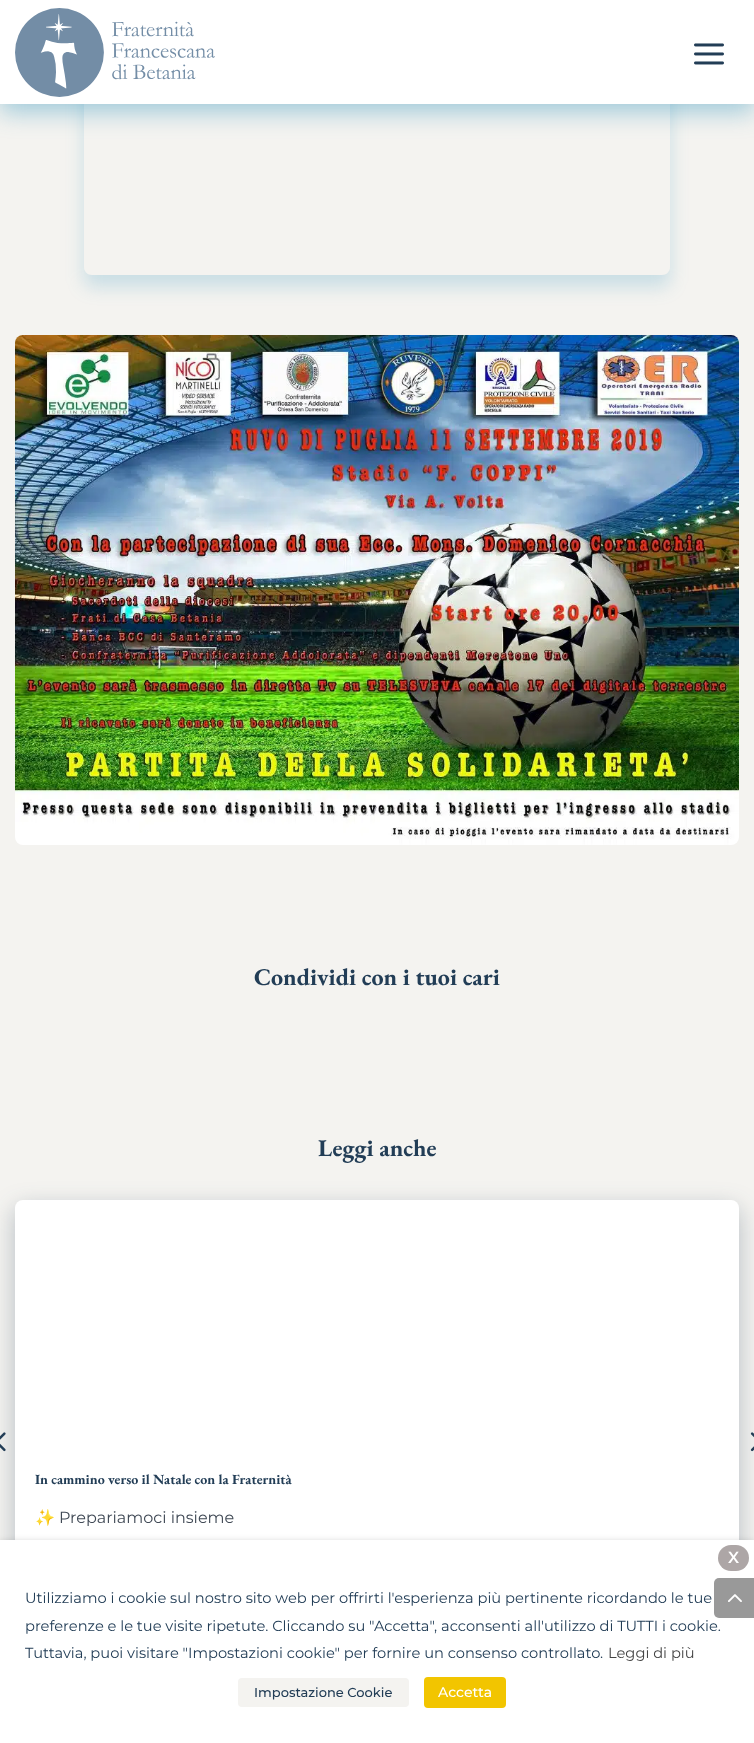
async function draw(canvas) {
  canvas.width = 754
  canvas.height = 1743
  const ctx = canvas.getContext('2d')
  ctx.miterLimit = 4
  ctx.fontKerning = 'normal'
  async function loadImage(src) {
    const img = new Image()
    img.src = src
    await img.decode()
    return img
  }

  ctx.fillStyle = '#f4f3f0'
  ctx.fillRect(0, 0, 754, 1743)
  ctx.fillStyle = '#1e8db966'
  ctx.filter = 'blur(12px)'
  ctx.beginPath()
  ctx.rect(0, 8, 754, 104)
  ctx.fill()
  ctx.filter = 'none'
  ctx.save()
  ctx.beginPath()
  ctx.moveTo(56, 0)
  ctx.lineTo(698, 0)
  ctx.lineTo(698, 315)
  ctx.lineTo(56, 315)
  ctx.closePath()
  ctx.moveTo(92, -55)
  ctx.lineTo(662, -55)
  ctx.bezierCurveTo(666.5, -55, 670, -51.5, 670, -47)
  ctx.lineTo(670, 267)
  ctx.bezierCurveTo(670, 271.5, 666.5, 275, 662, 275)
  ctx.lineTo(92, 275)
  ctx.bezierCurveTo(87.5, 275, 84, 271.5, 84, 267)
  ctx.lineTo(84, -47)
  ctx.bezierCurveTo(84, -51.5, 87.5, -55, 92, -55)
  ctx.closePath()
  ctx.clip('evenodd')
  ctx.fillStyle = '#1e8db933'
  ctx.filter = 'blur(9px)'
  ctx.beginPath()
  ctx.roundRect(84, -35, 586, 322, 8)
  ctx.fill()
  ctx.filter = 'none'
  ctx.restore()
  ctx.fillStyle = '#fff'
  ctx.fillRect(0, 0, 754, 104)
  ctx.drawImage(await loadImage('image0.png'), 15, 8, 200, 89)
  ctx.drawImage(await loadImage('image1.png'), 694, 43, 30, 22)
  ctx.drawImage(await loadImage('image2.png'), 15, 335, 724, 510)
  ctx.font = 'bold 24px EB Garamond'
  ctx.fillStyle = '#223d56'
  ctx.fillText('Condividi con i tuoi cari', 254, 985)
  ctx.fillText('Leggi anche', 318, 1156)
  ctx.fillStyle = '#223d564d'
  ctx.filter = 'blur(12px)'
  ctx.beginPath()
  ctx.roundRect(15, 1208, 724, 481, 8)
  ctx.fill()
  ctx.filter = 'none'
  ctx.drawImage(await loadImage('image3.png'), 0, 1432, 6, 20)
  ctx.drawImage(await loadImage('image4.png'), 750, 1432, 4, 20)
  ctx.fillStyle = '#fff'
  ctx.beginPath()
  ctx.roundRect(15, 1200, 724, 481, 8)
  ctx.fill()
  ctx.font = 'bold 14px EB Garamond'
  ctx.fillStyle = '#223d56'
  ctx.fillText('In cammino verso il Natale con la Fraternità', 35, 1484)
  ctx.font = '16px Noto Color Emoji'
  ctx.fillStyle = '#414a56'
  ctx.fillText('✨', 35, 1523)
  ctx.font = '16px Montserrat'
  ctx.fillText('Prepariamoci insieme', 59, 1523)
  ctx.fillStyle = '#00000080'
  ctx.filter = 'blur(5px)'
  ctx.beginPath()
  ctx.rect(0, 1545, 754, 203)
  ctx.fill()
  ctx.filter = 'none'
  ctx.fillStyle = '#fff'
  ctx.fillRect(0, 1540, 754, 203)
  ctx.fillStyle = '#ada6a6'
  ctx.beginPath()
  ctx.roundRect(718, 1545, 31, 26, 13)
  ctx.fill()
  ctx.font = '600 16px Montserrat'
  ctx.fillStyle = '#fff'
  ctx.fillText('X', 728, 1563)
  ctx.font = '14.65px Montserrat'
  ctx.fillStyle = '#223d56'
  ctx.fillText('Utilizziamo i cookie sul nostro sito web per offrirti l\'esperienza più pertinente ricordando le tue', 25, 1603)
  ctx.fillText('preferenze e le tue visite ripetute. Cliccando su "Accetta", acconsenti all\'utilizzo di TUTTI i cookie.', 25, 1631)
  ctx.fillText('Tuttavia, puoi visitare "Impostazioni cookie" per fornire un consenso controllato.', 25, 1658)
  ctx.fillStyle = '#444'
  ctx.fillText('Leggi di più', 608, 1658)
  ctx.fillStyle = '#f4f3f0'
  ctx.beginPath()
  ctx.roundRect(238, 1678, 171, 29, 4)
  ctx.fill()
  ctx.font = '500 13px Montserrat'
  ctx.fillStyle = '#223d56'
  ctx.fillText('Impostazione Cookie', 254, 1697)
  ctx.fillStyle = '#f2c500'
  ctx.beginPath()
  ctx.roundRect(424, 1677, 82, 31, 4)
  ctx.fill()
  ctx.font = '500 14px Montserrat'
  ctx.fillStyle = '#fff'
  ctx.fillText('Accetta', 438, 1697)
  ctx.fillStyle = '#999'
  ctx.beginPath()
  ctx.roundRect(714, 1578, 40, 40, [5, 0, 0, 5])
  ctx.fill()
  ctx.drawImage(await loadImage('image5.png'), 728, 1594, 14, 8)
}

draw(document.querySelector('canvas'))
